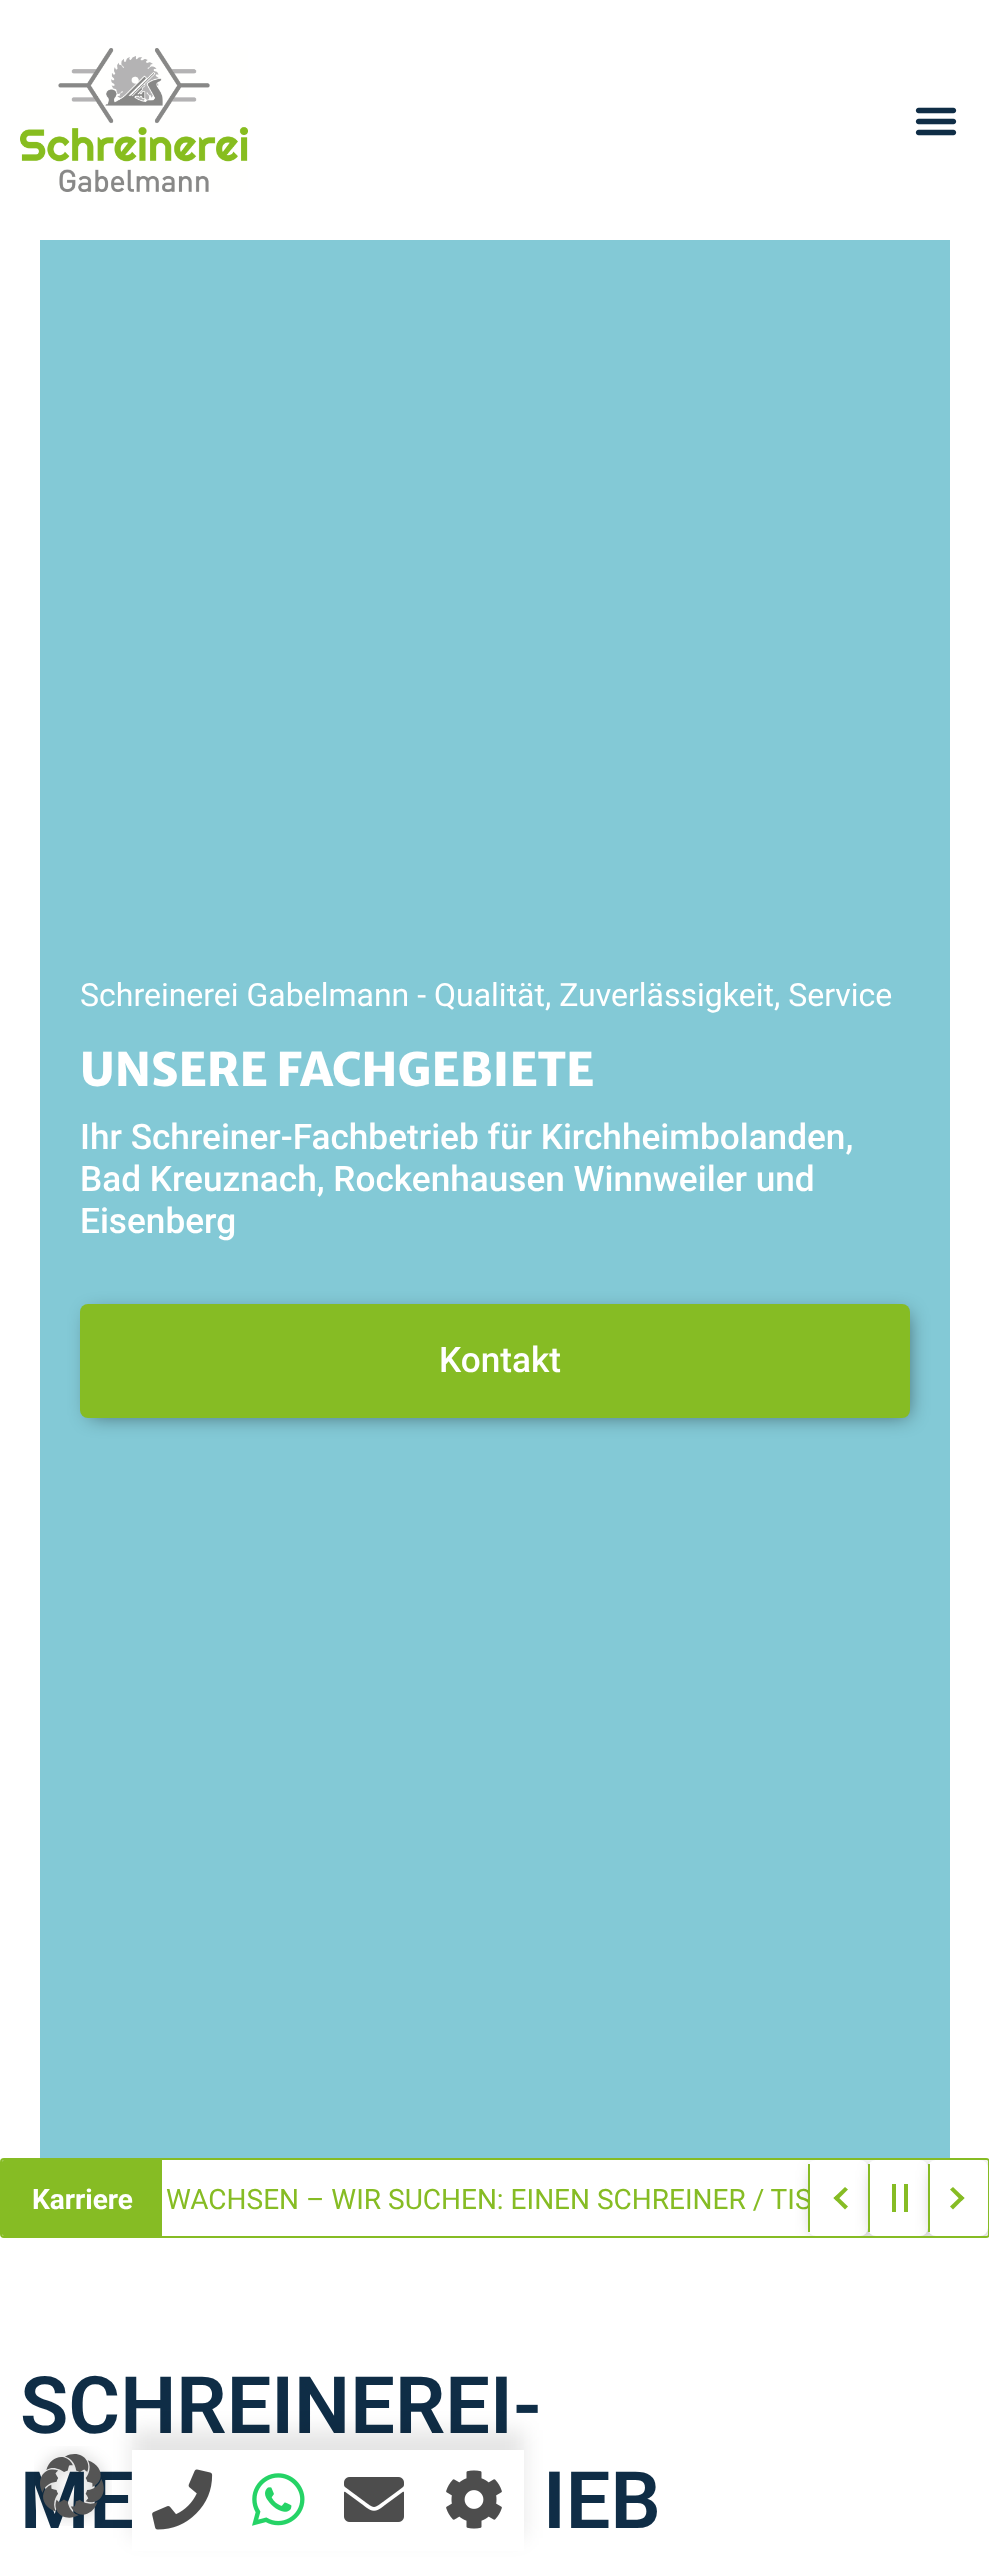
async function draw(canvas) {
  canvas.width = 989
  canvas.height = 2557
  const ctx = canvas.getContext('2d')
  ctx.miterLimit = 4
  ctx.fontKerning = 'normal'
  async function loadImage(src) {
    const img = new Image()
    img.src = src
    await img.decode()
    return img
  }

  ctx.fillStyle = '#fff'
  ctx.fillRect(0, 0, 989, 2557)
  ctx.drawImage(await loadImage('image0.png'), 20, 48, 228, 144)
  ctx.drawImage(await loadImage('image1.png'), 915, 107, 42, 29)
  ctx.fillStyle = '#83c9d6'
  ctx.fillRect(40, 240, 910, 1918)
  ctx.font = '32px Roboto'
  ctx.fillStyle = '#fff'
  ctx.fillText('Schreinerei Gabelmann - Qualität, Zuverlässigkeit, Service', 80, 1006)
  ctx.font = '800 46px Merriweather Sans'
  ctx.fillText('UNSERE FACHGEBIETE', 80, 1086)
  ctx.font = '500 35.2px Roboto'
  ctx.fillText('Ihr Schreiner-Fachbetrieb für Kirchheimbolanden,', 80, 1149)
  ctx.fillText('Bad Kreuznach, Rockenhausen Winnweiler und', 80, 1191)
  ctx.fillText('Eisenberg', 80, 1233)
  ctx.fillStyle = '#00000080'
  ctx.filter = 'blur(10px)'
  ctx.beginPath()
  ctx.roundRect(90, 1314, 818, 102, 2)
  ctx.fill()
  ctx.filter = 'none'
  ctx.fillStyle = '#86bc24'
  ctx.beginPath()
  ctx.roundRect(80, 1304, 830, 114, 8)
  ctx.fill()
  ctx.fillStyle = '#fff'
  ctx.fillText('Kontakt', 439, 1372)
  ctx.beginPath()
  ctx.roundRect(1, 2159, 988, 78, 3)
  ctx.strokeStyle = '#86bc24'
  ctx.lineWidth = 2
  ctx.stroke()
  ctx.fillStyle = '#86bc24'
  ctx.beginPath()
  ctx.roundRect(2, 2160, 160, 76, [2, 0, 0, 2])
  ctx.fill()
  ctx.font = 'bold 28px Roboto'
  ctx.fillStyle = '#fff'
  ctx.fillText('Karriere', 32, 2209)
  ctx.font = '28px Roboto'
  ctx.fillStyle = '#86bc24'
  ctx.fillText('WACHSEN – WIR SUCHEN: EINEN SCHREINER / TIS', 166, 2209)
  ctx.fillStyle = '#fff'
  ctx.beginPath()
  ctx.roundRect(808, 2160, 180, 76, [0, 2, 2, 0])
  ctx.fill()
  ctx.save()
  ctx.beginPath()
  ctx.roundRect(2, 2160, 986, 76, 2)
  ctx.clip()
  ctx.fillStyle = '#00000080'
  ctx.filter = 'blur(10px)'
  ctx.beginPath()
  ctx.roundRect(818, 2170, 48, 64, 2)
  ctx.fill()
  ctx.filter = 'none'
  ctx.restore()
  ctx.beginPath()
  ctx.roundRect(808, 2160, 60, 76, 8)
  ctx.fill()
  ctx.fillStyle = '#86bc24'
  ctx.fillRect(808, 2164, 2, 68)
  ctx.save()
  ctx.beginPath()
  ctx.roundRect(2, 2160, 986, 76, 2)
  ctx.clip()
  ctx.fillStyle = '#00000080'
  ctx.filter = 'blur(10px)'
  ctx.beginPath()
  ctx.roundRect(878, 2170, 48, 64, 2)
  ctx.fill()
  ctx.filter = 'none'
  ctx.restore()
  ctx.beginPath()
  ctx.moveTo(848, 2206.5)
  ctx.lineTo(845, 2209.5)
  ctx.lineTo(833.5, 2198)
  ctx.lineTo(836.5, 2195.5)
  ctx.closePath()
  ctx.fill()
  ctx.beginPath()
  ctx.moveTo(848, 2189.5)
  ctx.lineTo(836.5, 2201)
  ctx.lineTo(833.5, 2198)
  ctx.lineTo(845, 2187)
  ctx.closePath()
  ctx.fill()
  ctx.fillStyle = '#fff'
  ctx.beginPath()
  ctx.roundRect(868, 2160, 60, 76, 8)
  ctx.fill()
  ctx.fillStyle = '#86bc24'
  ctx.fillRect(868, 2164, 2, 68)
  ctx.fillRect(892, 2184, 4, 28)
  ctx.save()
  ctx.beginPath()
  ctx.roundRect(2, 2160, 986, 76, 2)
  ctx.clip()
  ctx.fillStyle = '#00000080'
  ctx.filter = 'blur(10px)'
  ctx.beginPath()
  ctx.roundRect(938, 2170, 48, 64, 2)
  ctx.fill()
  ctx.filter = 'none'
  ctx.restore()
  ctx.fillRect(904, 2184, 4, 28)
  ctx.fillStyle = '#fff'
  ctx.beginPath()
  ctx.roundRect(928, 2160, 60, 76, 8)
  ctx.fill()
  ctx.fillStyle = '#86bc24'
  ctx.fillRect(928, 2164, 2, 68)
  ctx.beginPath()
  ctx.moveTo(950, 2189.5)
  ctx.lineTo(953, 2187)
  ctx.lineTo(964.5, 2198)
  ctx.lineTo(961.5, 2201)
  ctx.closePath()
  ctx.fill()
  ctx.beginPath()
  ctx.moveTo(950, 2206.5)
  ctx.lineTo(961.5, 2195.5)
  ctx.lineTo(964.5, 2198)
  ctx.lineTo(953, 2209.5)
  ctx.closePath()
  ctx.fill()
  ctx.font = '600 79.25px Roboto'
  ctx.fillStyle = '#0f2d46'
  ctx.fillText('SCHREINEREI-', 20, 2433)
  ctx.fillText('ME', 20, 2528)
  ctx.fillText('IEB', 543, 2528)
  ctx.fillStyle = '#0000001a'
  ctx.filter = 'blur(10px)'
  ctx.beginPath()
  ctx.rect(132, 2430, 392, 108)
  ctx.fill()
  ctx.filter = 'none'
  ctx.fillStyle = '#fff'
  ctx.fillRect(132, 2450, 392, 101)
  ctx.drawImage(await loadImage('image2.png'), 152, 2469, 61, 61)
  ctx.drawImage(await loadImage('image3.png'), 252, 2473, 53, 53)
  ctx.drawImage(await loadImage('image4.png'), 344, 2477, 60, 45)
  ctx.drawImage(await loadImage('image5.png'), 446, 2470, 56, 59)
  ctx.drawImage(await loadImage('image6.png'), 34, 2446, 78, 80)
}

draw(document.querySelector('canvas'))
